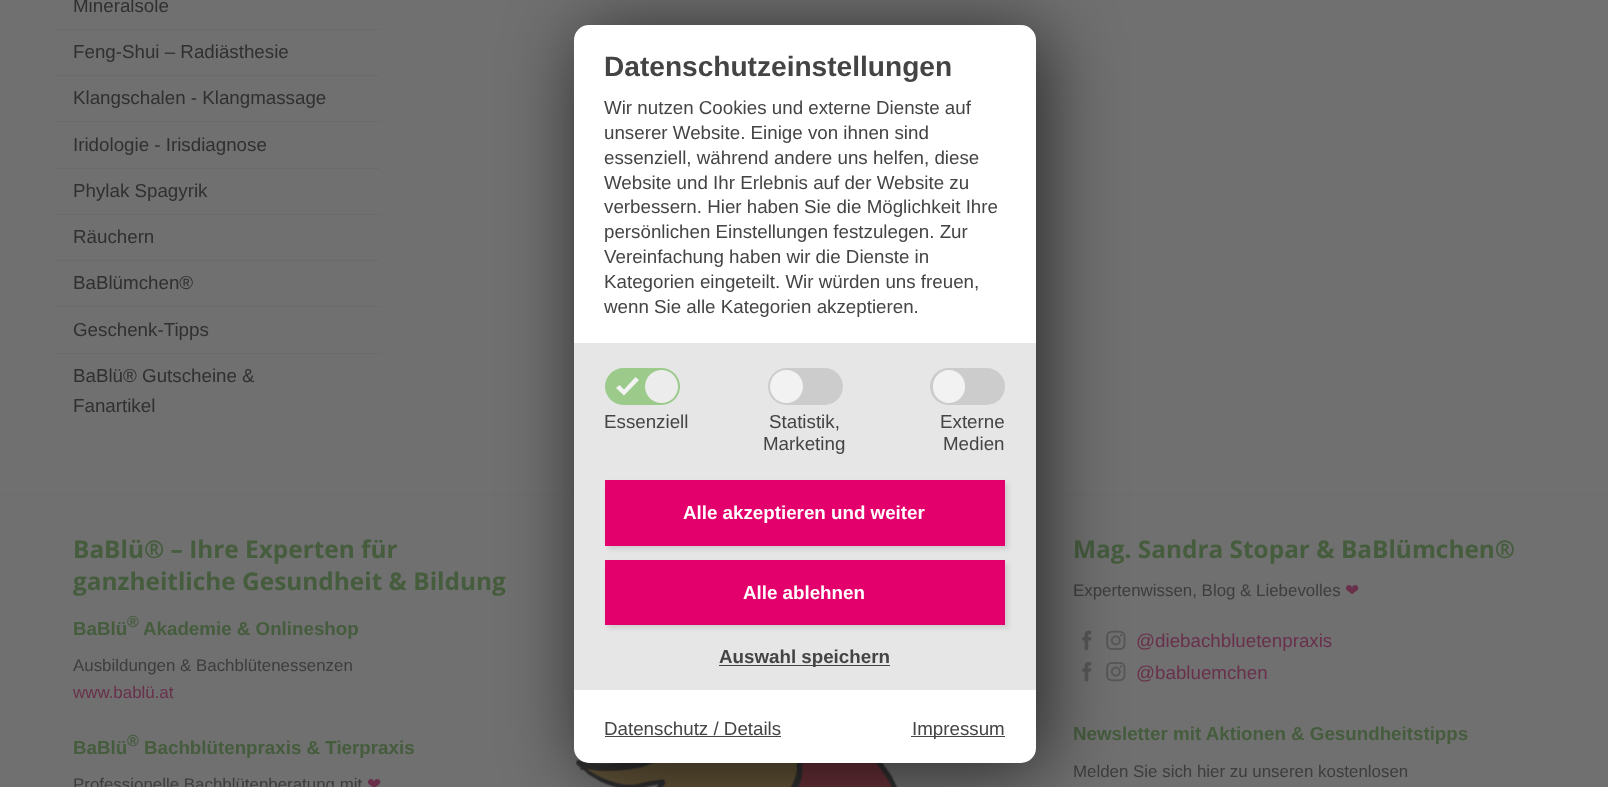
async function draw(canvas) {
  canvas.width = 1608
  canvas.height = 787
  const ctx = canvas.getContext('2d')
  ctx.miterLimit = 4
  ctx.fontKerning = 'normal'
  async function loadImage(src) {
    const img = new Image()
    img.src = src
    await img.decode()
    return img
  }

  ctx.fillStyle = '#707070'
  ctx.fillRect(0, 0, 1608, 787)
  ctx.font = '18.75px Liberation Sans'
  ctx.fillStyle = '#303030'
  ctx.fillText('Mineralsole', 73, 12)
  ctx.fillStyle = '#6b6b6b'
  ctx.fillRect(55, 29, 325, 1)
  ctx.fillStyle = '#303030'
  ctx.fillText('Feng-Shui – Radiästhesie', 73, 58)
  ctx.fillStyle = '#6b6b6b'
  ctx.fillRect(55, 75, 325, 1)
  ctx.fillStyle = '#303030'
  ctx.fillText('Klangschalen - Klangmassage', 73, 104)
  ctx.fillStyle = '#6b6b6b'
  ctx.fillRect(55, 121, 325, 1)
  ctx.fillStyle = '#303030'
  ctx.fillText('Iridologie - Irisdiagnose', 73, 151)
  ctx.fillStyle = '#6b6b6b'
  ctx.fillRect(55, 168, 325, 1)
  ctx.fillStyle = '#303030'
  ctx.fillText('Phylak Spagyrik', 73, 197)
  ctx.fillStyle = '#6b6b6b'
  ctx.fillRect(55, 214, 325, 1)
  ctx.fillStyle = '#303030'
  ctx.fillText('Räuchern', 73, 243)
  ctx.fillStyle = '#6b6b6b'
  ctx.fillRect(55, 260, 325, 1)
  ctx.fillStyle = '#303030'
  ctx.fillText('BaBlümchen®', 73, 289)
  ctx.fillStyle = '#6b6b6b'
  ctx.fillRect(55, 306, 325, 1)
  ctx.fillStyle = '#303030'
  ctx.fillText('Geschenk-Tipps', 73, 336)
  ctx.fillStyle = '#6b6b6b'
  ctx.fillRect(55, 353, 325, 1)
  ctx.fillStyle = '#303030'
  ctx.fillText('BaBlü® Gutscheine &', 73, 382)
  ctx.fillText('Fanartikel', 73, 412)
  ctx.fillStyle = '#6d6d6d'
  ctx.fillRect(0, 494, 1608, 1)
  ctx.font = 'bold 24.4px Open Sans'
  ctx.fillStyle = '#455c3d'
  ctx.fillText('BaBlü® – Ihre Experten für', 73, 558)
  ctx.fillText('ganzheitliche Gesundheit & Bildung', 73, 590)
  ctx.font = 'bold 18.75px Liberation Sans'
  ctx.fillText('BaBlü', 73, 635)
  ctx.font = 'bold 16px Liberation Sans'
  ctx.fillText('®', 127, 627)
  ctx.font = 'bold 18.75px Liberation Sans'
  ctx.fillText('Akademie & Onlineshop', 143, 635)
  ctx.font = '16.9px Liberation Sans'
  ctx.fillStyle = '#3d3d3d'
  ctx.fillText('Ausbildungen & Bachblütenessenzen', 73, 671)
  ctx.fillStyle = '#69304b'
  ctx.fillText('www.bablü.at', 73, 698)
  ctx.font = 'bold 18.75px Liberation Sans'
  ctx.fillStyle = '#455c3d'
  ctx.fillText('BaBlü', 73, 754)
  ctx.font = 'bold 16px Liberation Sans'
  ctx.fillText('®', 127, 746)
  ctx.font = 'bold 18.75px Liberation Sans'
  ctx.fillText('Bachblütenpraxis & Tierpraxis', 144, 754)
  ctx.font = '16.9px Liberation Sans'
  ctx.fillStyle = '#3d3d3d'
  ctx.fillText('Professionelle Bachblütenberatung mit', 73, 790)
  ctx.font = '16.9px DejaVu Sans'
  ctx.fillStyle = '#69304b'
  ctx.fillText('❤', 367, 790)
  ctx.drawImage(await loadImage('image0.png'), 575, 759, 323, 28)
  ctx.font = 'bold 24.4px Open Sans'
  ctx.fillStyle = '#455c3d'
  ctx.fillText('Mag. Sandra Stopar & BaBlümchen®', 1073, 558)
  ctx.font = '16.9px Liberation Sans'
  ctx.fillStyle = '#3d3d3d'
  ctx.fillText('Expertenwissen, Blog & Liebevolles', 1073, 596)
  ctx.font = '16.9px DejaVu Sans'
  ctx.fillStyle = '#69304b'
  ctx.fillText('❤', 1345, 596)
  ctx.drawImage(await loadImage('image1.png'), 1082, 630, 10, 20)
  ctx.drawImage(await loadImage('image2.png'), 1106, 630, 20, 20)
  ctx.font = '18.75px Liberation Sans'
  ctx.fillText('@diebachbluetenpraxis', 1136, 647)
  ctx.drawImage(await loadImage('image3.png'), 1082, 662, 10, 20)
  ctx.drawImage(await loadImage('image4.png'), 1106, 662, 20, 20)
  ctx.fillText('@babluemchen', 1136, 679)
  ctx.font = 'bold 18.75px Liberation Sans'
  ctx.fillStyle = '#455c3d'
  ctx.fillText('Newsletter mit Aktionen & Gesundheitstipps', 1073, 740)
  ctx.font = '16.9px Liberation Sans'
  ctx.fillStyle = '#3d3d3d'
  ctx.fillText('Melden Sie sich hier zu unseren kostenlosen', 1073, 777)
  ctx.fillStyle = '#000000a6'
  ctx.filter = 'blur(37.5px)'
  ctx.beginPath()
  ctx.roundRect(581, 33, 463, 737, 15)
  ctx.fill()
  ctx.filter = 'none'
  ctx.fillStyle = '#fff'
  ctx.beginPath()
  ctx.roundRect(574, 25, 462, 738, 15)
  ctx.fill()
  ctx.font = 'bold 28.1px Liberation Sans'
  ctx.fillStyle = '#444'
  ctx.fillText('Datenschutzeinstellungen', 604, 76)
  ctx.font = '18.75px Liberation Sans'
  ctx.fillText('Wir nutzen Cookies und externe Dienste auf', 604, 114)
  ctx.fillText('unserer Website. Einige von ihnen sind', 604, 139)
  ctx.fillText('essenziell, während andere uns helfen, diese', 604, 164)
  ctx.fillText('Website und Ihr Erlebnis auf der Website zu', 604, 189)
  ctx.fillText('verbessern. Hier haben Sie die Möglichkeit Ihre', 604, 213)
  ctx.fillText('persönlichen Einstellungen festzulegen. Zur', 604, 238)
  ctx.fillText('Vereinfachung haben wir die Dienste in', 604, 263)
  ctx.fillText('Kategorien eingeteilt. Wir würden uns freuen,', 604, 288)
  ctx.fillText('wenn Sie alle Kategorien akzeptieren.', 604, 313)
  ctx.fillStyle = '#e6e6e6'
  ctx.fillRect(574, 343, 462, 347)
  ctx.fillStyle = '#9bca8b'
  ctx.beginPath()
  ctx.roundRect(605, 368, 75, 37, 18.5)
  ctx.fill()
  ctx.fillStyle = '#f3f3f3'
  ctx.beginPath()
  ctx.moveTo(635.5, 377)
  ctx.lineTo(624, 389.5)
  ctx.lineTo(619.5, 385)
  ctx.lineTo(616, 388)
  ctx.lineTo(624, 395.5)
  ctx.lineTo(639, 380)
  ctx.closePath()
  ctx.fill()
  ctx.fillStyle = '#ececec'
  ctx.beginPath()
  ctx.arc(661.5, 386.5, 16.5, 0, 2 * Math.PI)
  ctx.fill()
  ctx.fillStyle = '#444'
  ctx.fillText('Essenziell', 604, 428)
  ctx.fillStyle = '#ccc'
  ctx.beginPath()
  ctx.roundRect(768, 368, 75, 37, 18.5)
  ctx.fill()
  ctx.fillStyle = '#f2f2f2'
  ctx.beginPath()
  ctx.arc(786.5, 386.5, 16.5, 0, 2 * Math.PI)
  ctx.fill()
  ctx.fillStyle = '#444'
  ctx.fillText('Statistik,', 769, 428)
  ctx.fillText('Marketing', 763, 450)
  ctx.fillStyle = '#ccc'
  ctx.beginPath()
  ctx.roundRect(930, 368, 75, 37, 18.5)
  ctx.fill()
  ctx.fillStyle = '#f2f2f2'
  ctx.beginPath()
  ctx.roundRect(933, 370, 32, 33, 16)
  ctx.fill()
  ctx.fillStyle = '#444'
  ctx.fillText('Externe', 940, 428)
  ctx.fillText('Medien', 943, 450)
  ctx.fillStyle = '#0000001a'
  ctx.filter = 'blur(2.5px)'
  ctx.beginPath()
  ctx.rect(608, 483, 400, 66)
  ctx.fill()
  ctx.filter = 'none'
  ctx.fillStyle = '#e4006c'
  ctx.fillRect(605, 480, 400, 66)
  ctx.font = 'bold 18.75px Liberation Sans'
  ctx.fillStyle = '#fff'
  ctx.fillText('Alle akzeptieren und weiter', 683, 519)
  ctx.fillStyle = '#0000001a'
  ctx.filter = 'blur(2.5px)'
  ctx.beginPath()
  ctx.rect(608, 563, 400, 65)
  ctx.fill()
  ctx.filter = 'none'
  ctx.fillStyle = '#e4006c'
  ctx.fillRect(605, 560, 400, 65)
  ctx.fillStyle = '#fff'
  ctx.fillText('Alle ablehnen', 743, 599)
  ctx.fillStyle = '#444'
  ctx.fillRect(719, 665, 171, 1)
  ctx.fillText('Auswahl speichern', 719, 663)
  ctx.font = '18.75px Liberation Sans'
  ctx.fillText('Datenschutz / Details', 604, 735)
  ctx.fillRect(605, 736, 176, 1)
  ctx.fillRect(911, 736, 94, 1)
  ctx.fillText('Impressum', 912, 735)
}

draw(document.querySelector('canvas'))
